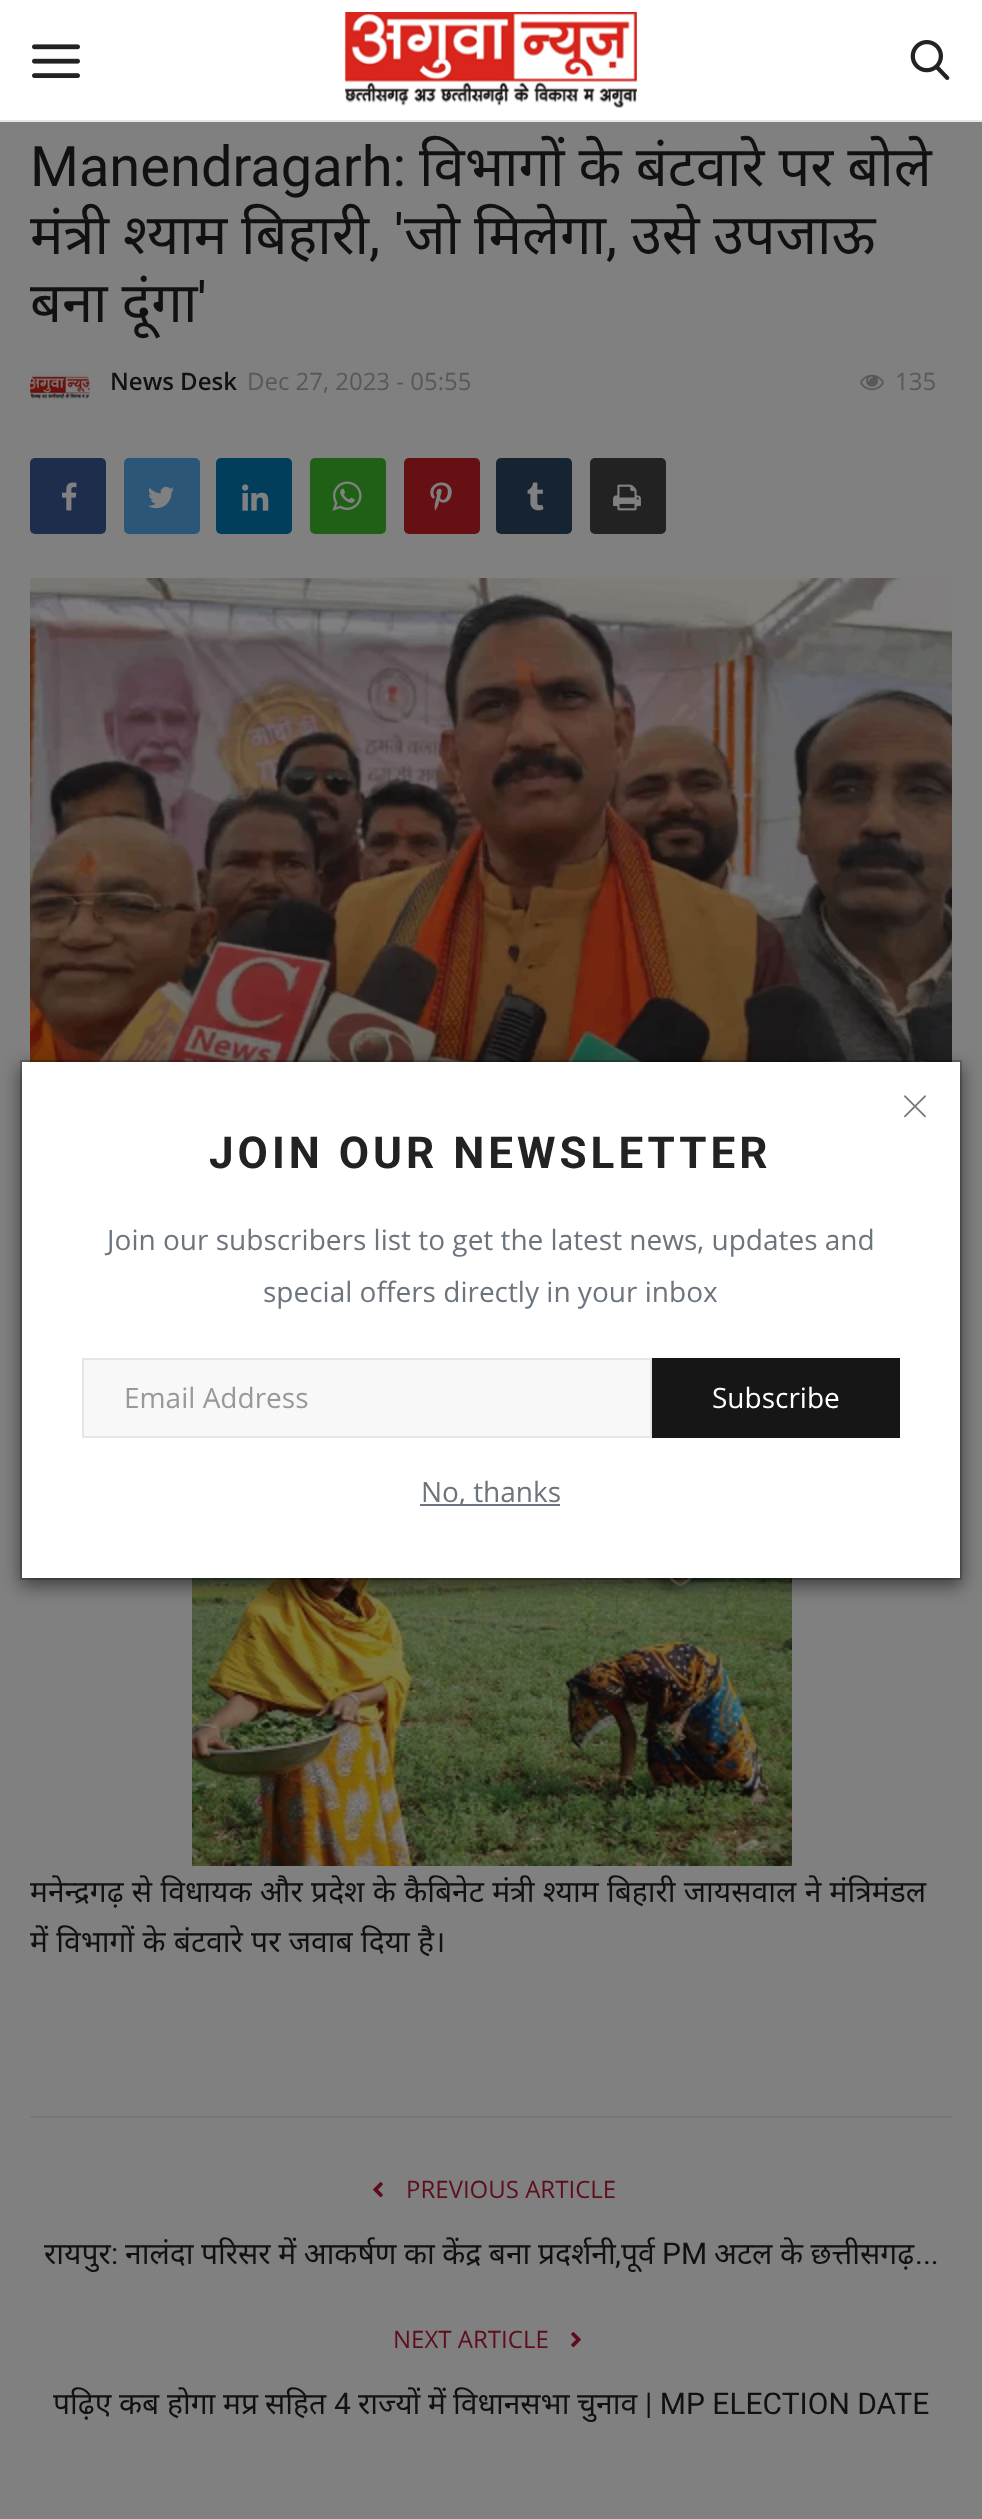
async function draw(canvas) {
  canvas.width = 982
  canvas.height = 2519
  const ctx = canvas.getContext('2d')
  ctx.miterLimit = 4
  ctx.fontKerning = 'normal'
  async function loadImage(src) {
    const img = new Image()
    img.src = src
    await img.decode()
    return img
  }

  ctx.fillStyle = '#808080'
  ctx.fillRect(0, 0, 982, 2519)
  ctx.fillStyle = '#fff'
  ctx.fillRect(0, 0, 982, 120)
  ctx.fillStyle = '#e6e6e6'
  ctx.fillRect(0, 120, 982, 2)
  ctx.drawImage(await loadImage('image0.png'), 32, 44, 48, 34)
  ctx.drawImage(await loadImage('image1.png'), 344, 12, 293, 96)
  ctx.drawImage(await loadImage('image2.png'), 910, 40, 40, 40)
  ctx.font = '56px Roboto'
  ctx.fillStyle = '#111'
  ctx.fillText('Manendragarh:', 30, 186)
  ctx.wordSpacing = '-0.5px'
  ctx.font = '56px Noto Sans'
  ctx.fillText('विभागों के बंटवारे पर बोले', 419, 186)
  ctx.wordSpacing = '0px'
  ctx.fillText('मंत्री', 30, 254)
  ctx.fillText('श्याम', 123, 254)
  ctx.fillText('बिहारी', 241, 254)
  ctx.font = '56px Roboto'
  ctx.fillText(', \'', 369, 254)
  ctx.font = '56px Noto Sans'
  ctx.fillText('जो', 404, 254)
  ctx.fillText('मिलेगा', 474, 254)
  ctx.font = '56px Roboto'
  ctx.fillText(',', 606, 254)
  ctx.font = '56px Noto Sans'
  ctx.fillText('उसे', 631, 254)
  ctx.fillText('उपजाऊ', 713, 254)
  ctx.wordSpacing = '-0.5px'
  ctx.fillText('बना दूंगा', 30, 322)
  ctx.wordSpacing = '0px'
  ctx.font = '56px Roboto'
  ctx.fillText('\'', 197, 322)
  ctx.drawImage(await loadImage('image3.png'), 30, 372, 60, 29)
  ctx.font = '600 24px Open Sans'
  ctx.fillText('News Desk', 110, 390)
  ctx.font = '24px Open Sans'
  ctx.fillStyle = '#585858'
  ctx.fillText('Dec 27, 2023 - 05:55', 247, 390)
  ctx.drawImage(await loadImage('image4.png'), 860, 374, 24, 17)
  ctx.fillText('135', 895, 390)
  ctx.fillStyle = '#1e2d4c'
  ctx.beginPath()
  ctx.roundRect(30, 458, 76, 76, 5)
  ctx.fill()
  ctx.drawImage(await loadImage('image5.png'), 62, 482, 15, 29)
  ctx.fillStyle = '#2b5677'
  ctx.beginPath()
  ctx.roundRect(124, 458, 76, 76, 5)
  ctx.fill()
  ctx.drawImage(await loadImage('image6.png'), 148, 486, 26, 23)
  ctx.fillStyle = '#003e5b'
  ctx.beginPath()
  ctx.roundRect(216, 458, 76, 76, 5)
  ctx.fill()
  ctx.drawImage(await loadImage('image7.png'), 242, 484, 27, 27)
  ctx.fillStyle = '#1f5f16'
  ctx.beginPath()
  ctx.roundRect(310, 458, 76, 76, 5)
  ctx.fill()
  ctx.drawImage(await loadImage('image8.png'), 332, 481, 30, 30)
  ctx.fillStyle = '#661014'
  ctx.beginPath()
  ctx.roundRect(404, 458, 76, 76, 5)
  ctx.fill()
  ctx.drawImage(await loadImage('image9.png'), 430, 482, 22, 29)
  ctx.fillStyle = '#162431'
  ctx.beginPath()
  ctx.roundRect(496, 458, 76, 76, 5)
  ctx.fill()
  ctx.drawImage(await loadImage('image10.png'), 527, 482, 17, 29)
  ctx.fillStyle = '#222'
  ctx.beginPath()
  ctx.roundRect(590, 458, 76, 76, 5)
  ctx.fill()
  ctx.drawImage(await loadImage('image11.png'), 613, 484, 28, 27)
  ctx.drawImage(await loadImage('image12.png'), 30, 578, 922, 484)
  ctx.drawImage(await loadImage('image13.png'), 192, 1578, 600, 288)
  ctx.wordSpacing = '0.5px'
  ctx.font = '30px Noto Sans'
  ctx.fillStyle = '#111'
  ctx.fillText('मनेन्द्रगढ़ से विधायक और प्रदेश के कैबिनेट मंत्री श्याम बिहारी जायसवाल ने मंत्रिमंडल', 30, 1902)
  ctx.fillText('में विभागों के बंटवारे पर जवाब दिया है।', 30, 1952)
  ctx.fillStyle = '#787878'
  ctx.fillRect(30, 2116, 922, 2)
  ctx.drawImage(await loadImage('image14.png'), 373, 2182, 10, 16)
  ctx.wordSpacing = '0px'
  ctx.font = '24px Open Sans'
  ctx.fillStyle = '#5e0d1c'
  ctx.fillText('PREVIOUS ARTICLE', 406, 2198)
  ctx.font = '30px Noto Sans'
  ctx.fillStyle = '#111'
  ctx.fillText('रायपुर', 44, 2264)
  ctx.font = '30px Roboto'
  ctx.fillText(':', 111, 2264)
  ctx.wordSpacing = '-0.25px'
  ctx.font = '30px Noto Sans'
  ctx.fillText('नालंदा परिसर में आकर्षण का केंद्र बना प्रदर्शनी', 125, 2264)
  ctx.wordSpacing = '0px'
  ctx.font = '30px Roboto'
  ctx.fillText(',', 615, 2264)
  ctx.font = '30px Noto Sans'
  ctx.fillText('पूर्व', 621, 2264)
  ctx.font = '30px Roboto'
  ctx.fillText('PM', 662, 2264)
  ctx.wordSpacing = '-0.25px'
  ctx.font = '30px Noto Sans'
  ctx.fillText('अटल के छत्तीसगढ़', 714, 2264)
  ctx.wordSpacing = '0px'
  ctx.font = '30px Roboto'
  ctx.fillText('...', 915, 2264)
  ctx.font = '24px Open Sans'
  ctx.fillStyle = '#5e0d1c'
  ctx.fillText('NEXT ARTICLE', 393, 2348)
  ctx.drawImage(await loadImage('image15.png'), 571, 2332, 10, 16)
  ctx.font = '30px Noto Sans'
  ctx.fillStyle = '#111'
  ctx.fillText('पढ़िए', 53, 2414)
  ctx.fillText('कब', 119, 2414)
  ctx.fillText('होगा', 167, 2414)
  ctx.fillText('मप्र', 223, 2414)
  ctx.fillText('सहित', 265, 2414)
  ctx.font = '30px Roboto'
  ctx.fillText('4', 334, 2414)
  ctx.font = '30px Noto Sans'
  ctx.fillText('राज्यों', 358, 2414)
  ctx.fillText('में', 428, 2414)
  ctx.fillText('विधानसभा', 453, 2414)
  ctx.fillText('चुनाव', 577, 2414)
  ctx.font = '30px Roboto'
  ctx.fillText('| MP ELECTION DATE', 645, 2414)
  ctx.fillStyle = '#00000080'
  ctx.filter = 'blur(9px)'
  ctx.beginPath()
  ctx.rect(20, 1066, 942, 520)
  ctx.fill()
  ctx.filter = 'none'
  ctx.fillStyle = '#fff'
  ctx.fillRect(22, 1062, 938, 516)
  ctx.strokeStyle = '#00000033'
  ctx.lineWidth = 2
  ctx.strokeRect(21, 1061, 940, 518)
  ctx.drawImage(await loadImage('image16.png'), 904, 1095, 22, 23)
  ctx.letterSpacing = '4px'
  ctx.font = 'bold 44px Roboto'
  ctx.fillStyle = '#222'
  ctx.fillText('JOIN OUR NEWSLETTER', 209, 1168)
  ctx.letterSpacing = '0px'
  ctx.font = '28px Open Sans'
  ctx.fillStyle = '#6c757d'
  ctx.fillText('Join our subscribers list to get the latest news, updates and', 107, 1250)
  ctx.fillText('special offers directly in your inbox', 263, 1302)
  ctx.fillStyle = '#f8f8f8'
  ctx.beginPath()
  ctx.rect(83, 1359, 568, 78)
  ctx.fill()
  ctx.strokeStyle = '#e6e6e6'
  ctx.stroke()
  ctx.fillStyle = '#999'
  ctx.fillText('Email Address', 124, 1408)
  ctx.fillStyle = '#161616'
  ctx.fillRect(652, 1358, 248, 80)
  ctx.fillStyle = '#fff'
  ctx.fillText('Subscribe', 712, 1408)
  ctx.fillStyle = '#6c757d'
  ctx.fillRect(420, 1504, 140, 2)
  ctx.fillText('No, thanks', 421, 1502)
}

draw(document.querySelector('canvas'))
